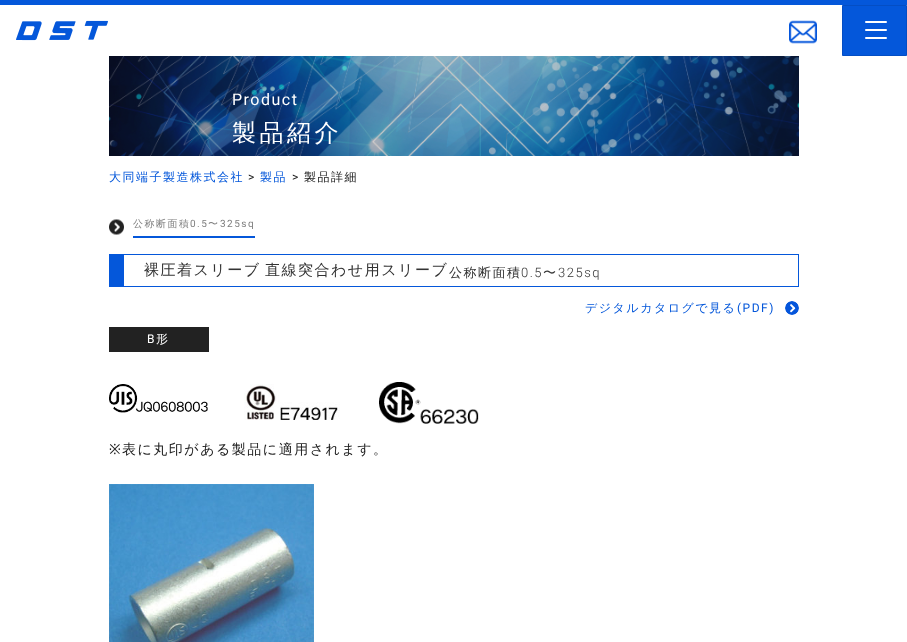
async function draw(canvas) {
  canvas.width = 907
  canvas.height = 642
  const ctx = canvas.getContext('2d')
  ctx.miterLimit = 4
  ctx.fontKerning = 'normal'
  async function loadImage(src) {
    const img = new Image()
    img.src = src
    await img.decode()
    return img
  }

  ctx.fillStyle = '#fff'
  ctx.fillRect(0, 0, 907, 642)
  ctx.fillStyle = '#0457da'
  ctx.fillRect(0, 0, 907, 5)
  ctx.drawImage(await loadImage('image0.png'), 16, 20, 92, 21)
  ctx.beginPath()
  ctx.rect(842.5, 5.5, 64, 50)
  ctx.fill()
  ctx.strokeStyle = '#044ec4'
  ctx.stroke()
  ctx.fillStyle = '#fff'
  ctx.beginPath()
  ctx.roundRect(865, 21, 22, 2, 1)
  ctx.fill()
  ctx.beginPath()
  ctx.roundRect(865, 29, 22, 2, 1)
  ctx.fill()
  ctx.beginPath()
  ctx.roundRect(865, 37, 22, 2, 1)
  ctx.fill()
  ctx.drawImage(await loadImage('image1.png'), 789, 20, 28, 24)
  ctx.drawImage(await loadImage('image2.png'), 109, 56, 690, 100)
  ctx.letterSpacing = '1.5px'
  ctx.font = '16px Roboto'
  ctx.fillText('Product', 232, 105)
  ctx.letterSpacing = '3.5px'
  ctx.font = '500 24px WenQuanYi Zen Hei'
  ctx.fillText('製品紹介', 232, 141)
  ctx.letterSpacing = '1.5px'
  ctx.font = '500 12px WenQuanYi Zen Hei'
  ctx.fillStyle = '#0457da'
  ctx.fillText('大同端子製造株式会社', 109, 181)
  ctx.font = '12px Roboto'
  ctx.fillStyle = '#222'
  ctx.fillText('>', 248, 181)
  ctx.font = '500 12px WenQuanYi Zen Hei'
  ctx.fillStyle = '#0457da'
  ctx.fillText('製品', 260, 181)
  ctx.font = '12px Roboto'
  ctx.fillStyle = '#222'
  ctx.fillText('>', 292, 181)
  ctx.font = '500 12px WenQuanYi Zen Hei'
  ctx.fillText('製品詳細', 304, 181)
  ctx.drawImage(await loadImage('image3.png'), 109, 219, 15, 16)
  ctx.fillStyle = '#0457da'
  ctx.fillRect(133, 236, 122, 2)
  ctx.font = '500 10px WenQuanYi Zen Hei'
  ctx.fillStyle = '#7e7e7e'
  ctx.fillText('公称断面積', 133, 227)
  ctx.font = '10px Roboto'
  ctx.fillText('0.5', 190, 227)
  ctx.font = '500 10px WenQuanYi Zen Hei'
  ctx.fillText('〜', 208, 227)
  ctx.font = '10px Roboto'
  ctx.fillText('325sq', 220, 227)
  ctx.fillStyle = '#0457da'
  ctx.fillRect(124, 254, 675, 1)
  ctx.fillRect(798, 254, 1, 33)
  ctx.fillRect(124, 286, 675, 1)
  ctx.fillRect(109, 254, 15, 33)
  ctx.font = '500 15px WenQuanYi Zen Hei'
  ctx.fillStyle = '#333'
  ctx.fillText('裸圧着スリーブ', 144, 275)
  ctx.fillText('直線突合わせ用スリーブ', 265, 275)
  ctx.font = '500 13px WenQuanYi Zen Hei'
  ctx.fillText('公称断面積', 449, 277)
  ctx.font = '300 13px Roboto'
  ctx.fillText('0.5', 521, 277)
  ctx.font = '500 13px WenQuanYi Zen Hei'
  ctx.fillText('〜', 543, 277)
  ctx.font = '300 13px Roboto'
  ctx.fillText('325sq', 558, 277)
  ctx.font = '500 12px WenQuanYi Zen Hei'
  ctx.fillStyle = '#0457da'
  ctx.fillText('デジタルカタログで見る', 585, 312)
  ctx.font = '12px Roboto'
  ctx.fillText('(PDF)', 737, 312)
  ctx.drawImage(await loadImage('image4.png'), 785, 301, 14, 14)
  ctx.fillStyle = '#222'
  ctx.fillRect(109, 327, 100, 25)
  ctx.fillStyle = '#fff'
  ctx.fillText('B', 147, 343)
  ctx.font = '500 12px WenQuanYi Zen Hei'
  ctx.fillText('形', 156, 343)
  ctx.drawImage(await loadImage('image5.png'), 109, 384, 99, 29)
  ctx.drawImage(await loadImage('image6.png'), 244, 384, 96, 36)
  ctx.drawImage(await loadImage('image7.png'), 379, 382, 100, 42)
  ctx.font = '14px Noto Sans'
  ctx.fillStyle = '#222'
  ctx.fillText('※', 109, 454)
  ctx.font = '500 14px WenQuanYi Zen Hei'
  ctx.fillText('表に丸印がある製品に適用されます。', 122, 454)
  ctx.drawImage(await loadImage('image8.png'), 109, 484, 205, 158)
}

draw(document.querySelector('canvas'))
